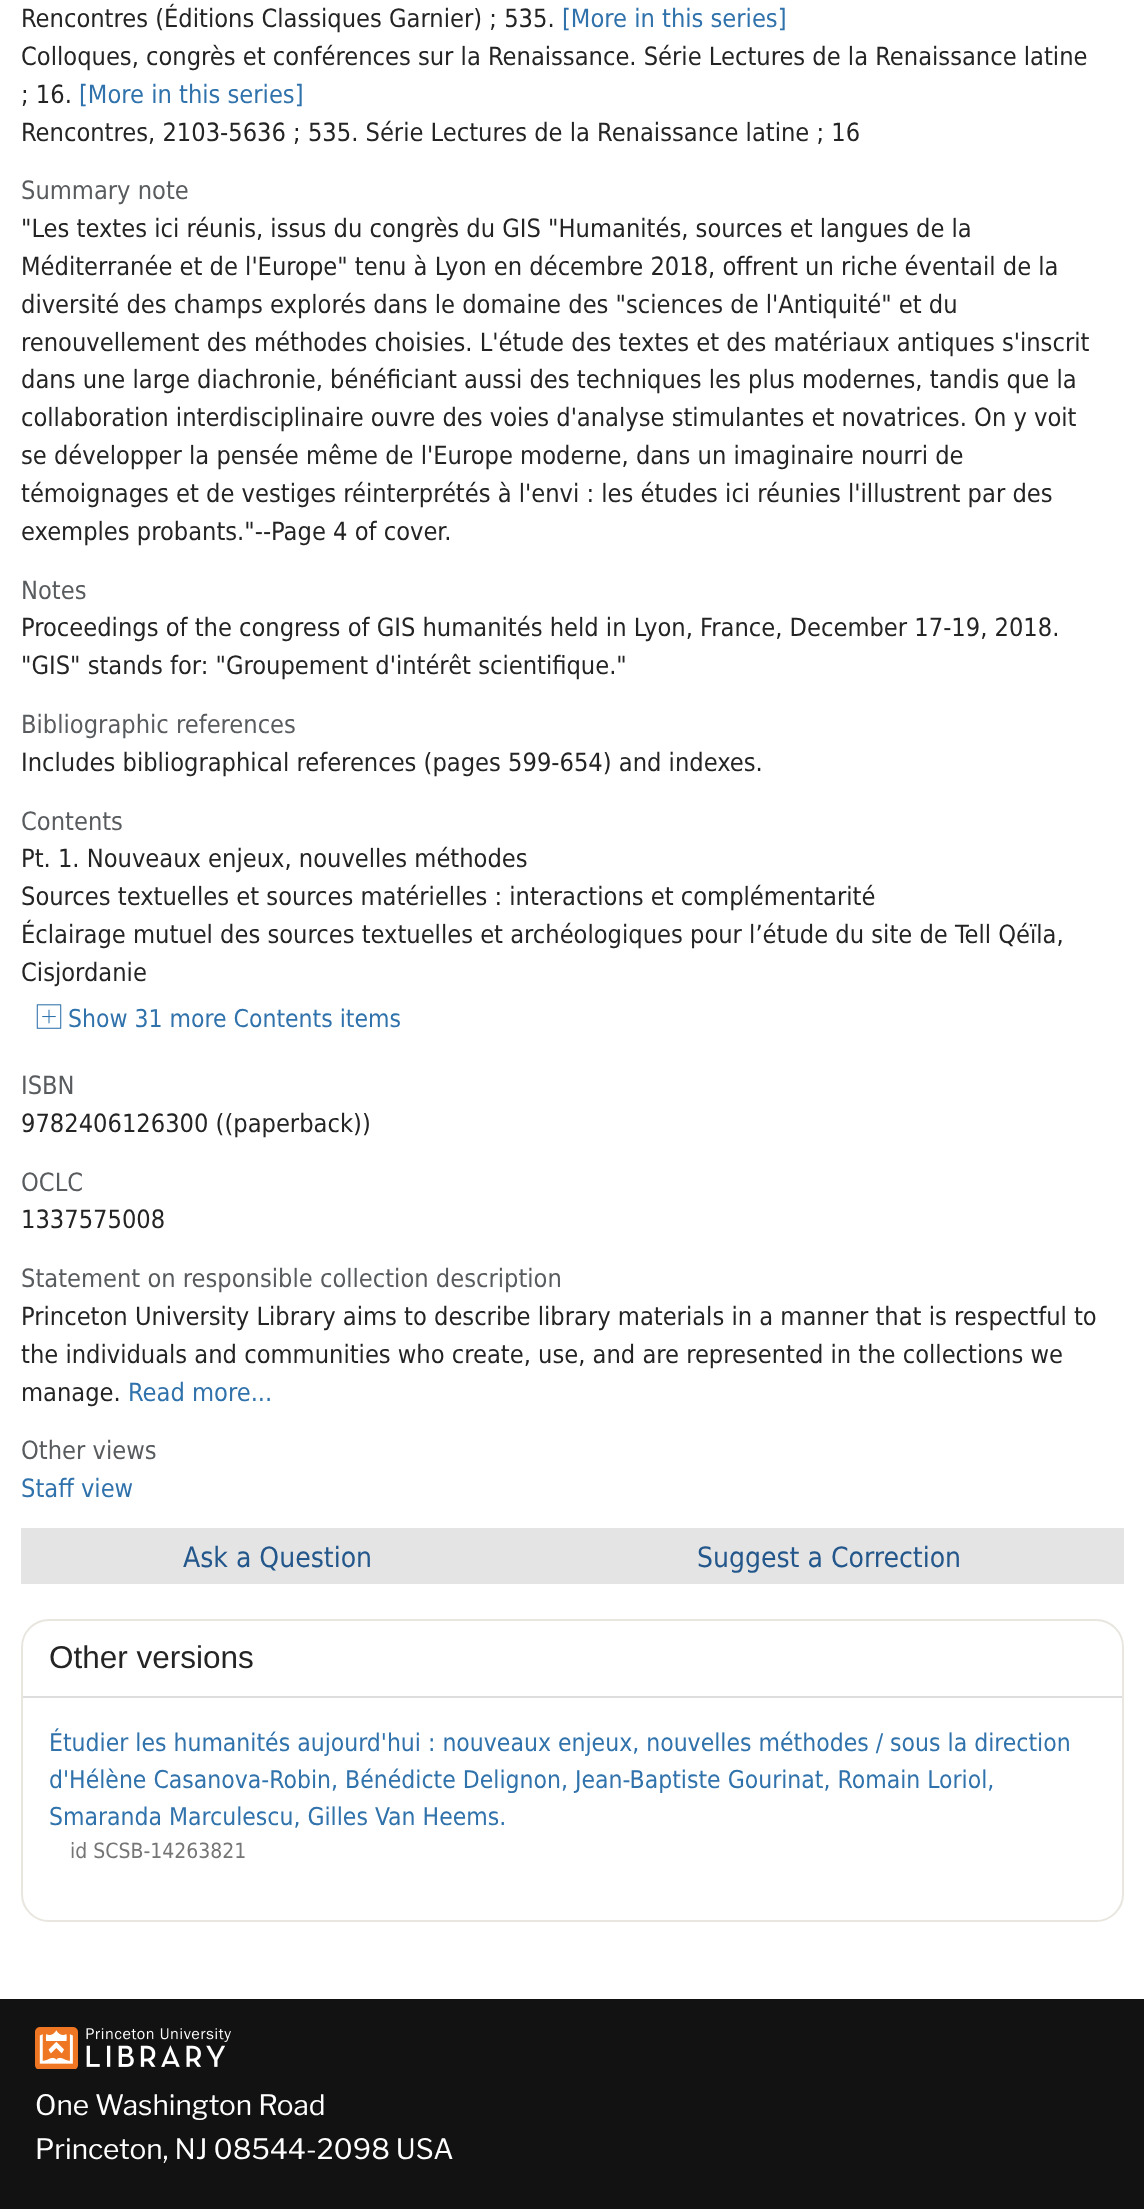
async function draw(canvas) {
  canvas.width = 1144
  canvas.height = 2209
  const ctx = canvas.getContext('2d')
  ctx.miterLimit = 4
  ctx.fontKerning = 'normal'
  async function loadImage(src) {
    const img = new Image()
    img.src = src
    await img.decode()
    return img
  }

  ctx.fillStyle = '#fff'
  ctx.fillRect(0, 0, 1144, 2209)
  ctx.font = '25.2px DejaVu Sans'
  ctx.fillStyle = '#242424'
  ctx.fillText('Rencontres (Éditions Classiques Garnier) ; 535.', 21, 27)
  ctx.fillStyle = '#3072ab'
  ctx.fillText('[More in this series]', 562, 27)
  ctx.fillStyle = '#242424'
  ctx.fillText('Colloques, congrès et conférences sur la Renaissance. Série Lectures de la Renaissance latine', 21, 65)
  ctx.fillText('; 16.', 21, 103)
  ctx.fillStyle = '#3072ab'
  ctx.fillText('[More in this series]', 79, 103)
  ctx.fillStyle = '#242424'
  ctx.fillText('Rencontres, 2103-5636 ; 535. Série Lectures de la Renaissance latine ; 16', 21, 141)
  ctx.fillStyle = '#595c5f'
  ctx.fillText('Summary note', 21, 199)
  ctx.fillStyle = '#242424'
  ctx.fillText('"Les textes ici réunis, issus du congrès du GIS "Humanités, sources et langues de la', 21, 237)
  ctx.fillText('Méditerranée et de l\'Europe" tenu à Lyon en décembre 2018, offrent un riche éventail de la', 21, 275)
  ctx.fillText('diversité des champs explorés dans le domaine des "sciences de l\'Antiquité" et du', 21, 313)
  ctx.fillText('renouvellement des méthodes choisies. L\'étude des textes et des matériaux antiques s\'inscrit', 21, 351)
  ctx.fillText('dans une large diachronie, bénéficiant aussi des techniques les plus modernes, tandis que la', 21, 388)
  ctx.fillText('collaboration interdisciplinaire ouvre des voies d\'analyse stimulantes et novatrices. On y voit', 21, 426)
  ctx.fillText('se développer la pensée même de l\'Europe moderne, dans un imaginaire nourri de', 21, 464)
  ctx.fillText('témoignages et de vestiges réinterprétés à l\'envi : les études ici réunies l\'illustrent par des', 21, 502)
  ctx.fillText('exemples probants."--Page 4 of cover.', 21, 540)
  ctx.fillStyle = '#595c5f'
  ctx.fillText('Notes', 21, 599)
  ctx.fillStyle = '#242424'
  ctx.fillText('Proceedings of the congress of GIS humanités held in Lyon, France, December 17-19, 2018.', 21, 636)
  ctx.fillText('"GIS" stands for: "Groupement d\'intérêt scientifique."', 21, 674)
  ctx.fillStyle = '#595c5f'
  ctx.fillText('Bibliographic references', 21, 733)
  ctx.fillStyle = '#242424'
  ctx.fillText('Includes bibliographical references (pages 599-654) and indexes.', 21, 771)
  ctx.fillStyle = '#595c5f'
  ctx.fillText('Contents', 21, 830)
  ctx.fillStyle = '#242424'
  ctx.fillText('Pt. 1. Nouveaux enjeux, nouvelles méthodes', 21, 867)
  ctx.fillText('Sources textuelles et sources matérielles : interactions et complémentarité', 21, 905)
  ctx.fillText('Éclairage mutuel des sources textuelles et archéologiques pour l’étude du site de Tell Qéïla,', 21, 943)
  ctx.fillText('Cisjordanie', 21, 981)
  ctx.drawImage(await loadImage('image0.png'), 36, 1004, 26, 25)
  ctx.font = '24.5px DejaVu Sans'
  ctx.fillStyle = '#3072ab'
  ctx.fillText('Show 31 more Contents items', 68, 1027)
  ctx.font = '25.2px DejaVu Sans'
  ctx.fillStyle = '#595c5f'
  ctx.fillText('ISBN', 21, 1094)
  ctx.fillStyle = '#242424'
  ctx.fillText('9782406126300 ((paperback))', 21, 1132)
  ctx.fillStyle = '#595c5f'
  ctx.fillText('OCLC', 21, 1191)
  ctx.fillStyle = '#242424'
  ctx.fillText('1337575008', 21, 1228)
  ctx.fillStyle = '#595c5f'
  ctx.fillText('Statement on responsible collection description', 21, 1287)
  ctx.fillStyle = '#242424'
  ctx.fillText('Princeton University Library aims to describe library materials in a manner that is respectful to', 21, 1325)
  ctx.fillText('the individuals and communities who create, use, and are represented in the collections we', 21, 1363)
  ctx.fillText('manage.', 21, 1401)
  ctx.fillStyle = '#3072ab'
  ctx.fillText('Read more...', 128, 1401)
  ctx.fillStyle = '#595c5f'
  ctx.fillText('Other views', 21, 1459)
  ctx.fillStyle = '#3072ab'
  ctx.fillText('Staff view', 21, 1497)
  ctx.fillStyle = '#e4e4e4'
  ctx.fillRect(21, 1528, 1103, 56)
  ctx.font = '28px DejaVu Sans'
  ctx.fillStyle = '#23578b'
  ctx.fillText('Ask a Question', 183, 1567)
  ctx.fillText('Suggest a Correction', 697, 1567)
  ctx.beginPath()
  ctx.roundRect(22, 1620, 1101, 301, 27)
  ctx.strokeStyle = '#e8e6df'
  ctx.lineWidth = 2
  ctx.stroke()
  ctx.fillStyle = '#ddd'
  ctx.fillRect(23, 1696, 1099, 2)
  ctx.font = '31.5px Liberation Sans'
  ctx.fillStyle = '#242424'
  ctx.fillText('Other versions', 49, 1668)
  ctx.font = '24.5px DejaVu Sans'
  ctx.fillStyle = '#3072ab'
  ctx.fillText('Étudier les humanités aujourd\'hui : nouveaux enjeux, nouvelles méthodes / sous la direction', 49, 1751)
  ctx.fillText('d\'Hélène Casanova-Robin, Bénédicte Delignon, Jean-Baptiste Gourinat, Romain Loriol,', 49, 1788)
  ctx.fillText('Smaranda Marculescu, Gilles Van Heems.', 49, 1825)
  ctx.font = '21px DejaVu Sans'
  ctx.fillStyle = '#757575'
  ctx.fillText('id SCSB-14263821', 70, 1858)
  ctx.fillStyle = '#121212'
  ctx.fillRect(0, 1999, 1144, 210)
  ctx.drawImage(await loadImage('image1.png'), 35, 2027, 196, 42)
  ctx.font = '28px Libre Franklin'
  ctx.fillStyle = '#fff'
  ctx.fillText('One Washington Road', 35, 2115)
  ctx.fillText('Princeton, NJ 08544-2098 USA', 35, 2159)
}

draw(document.querySelector('canvas'))
